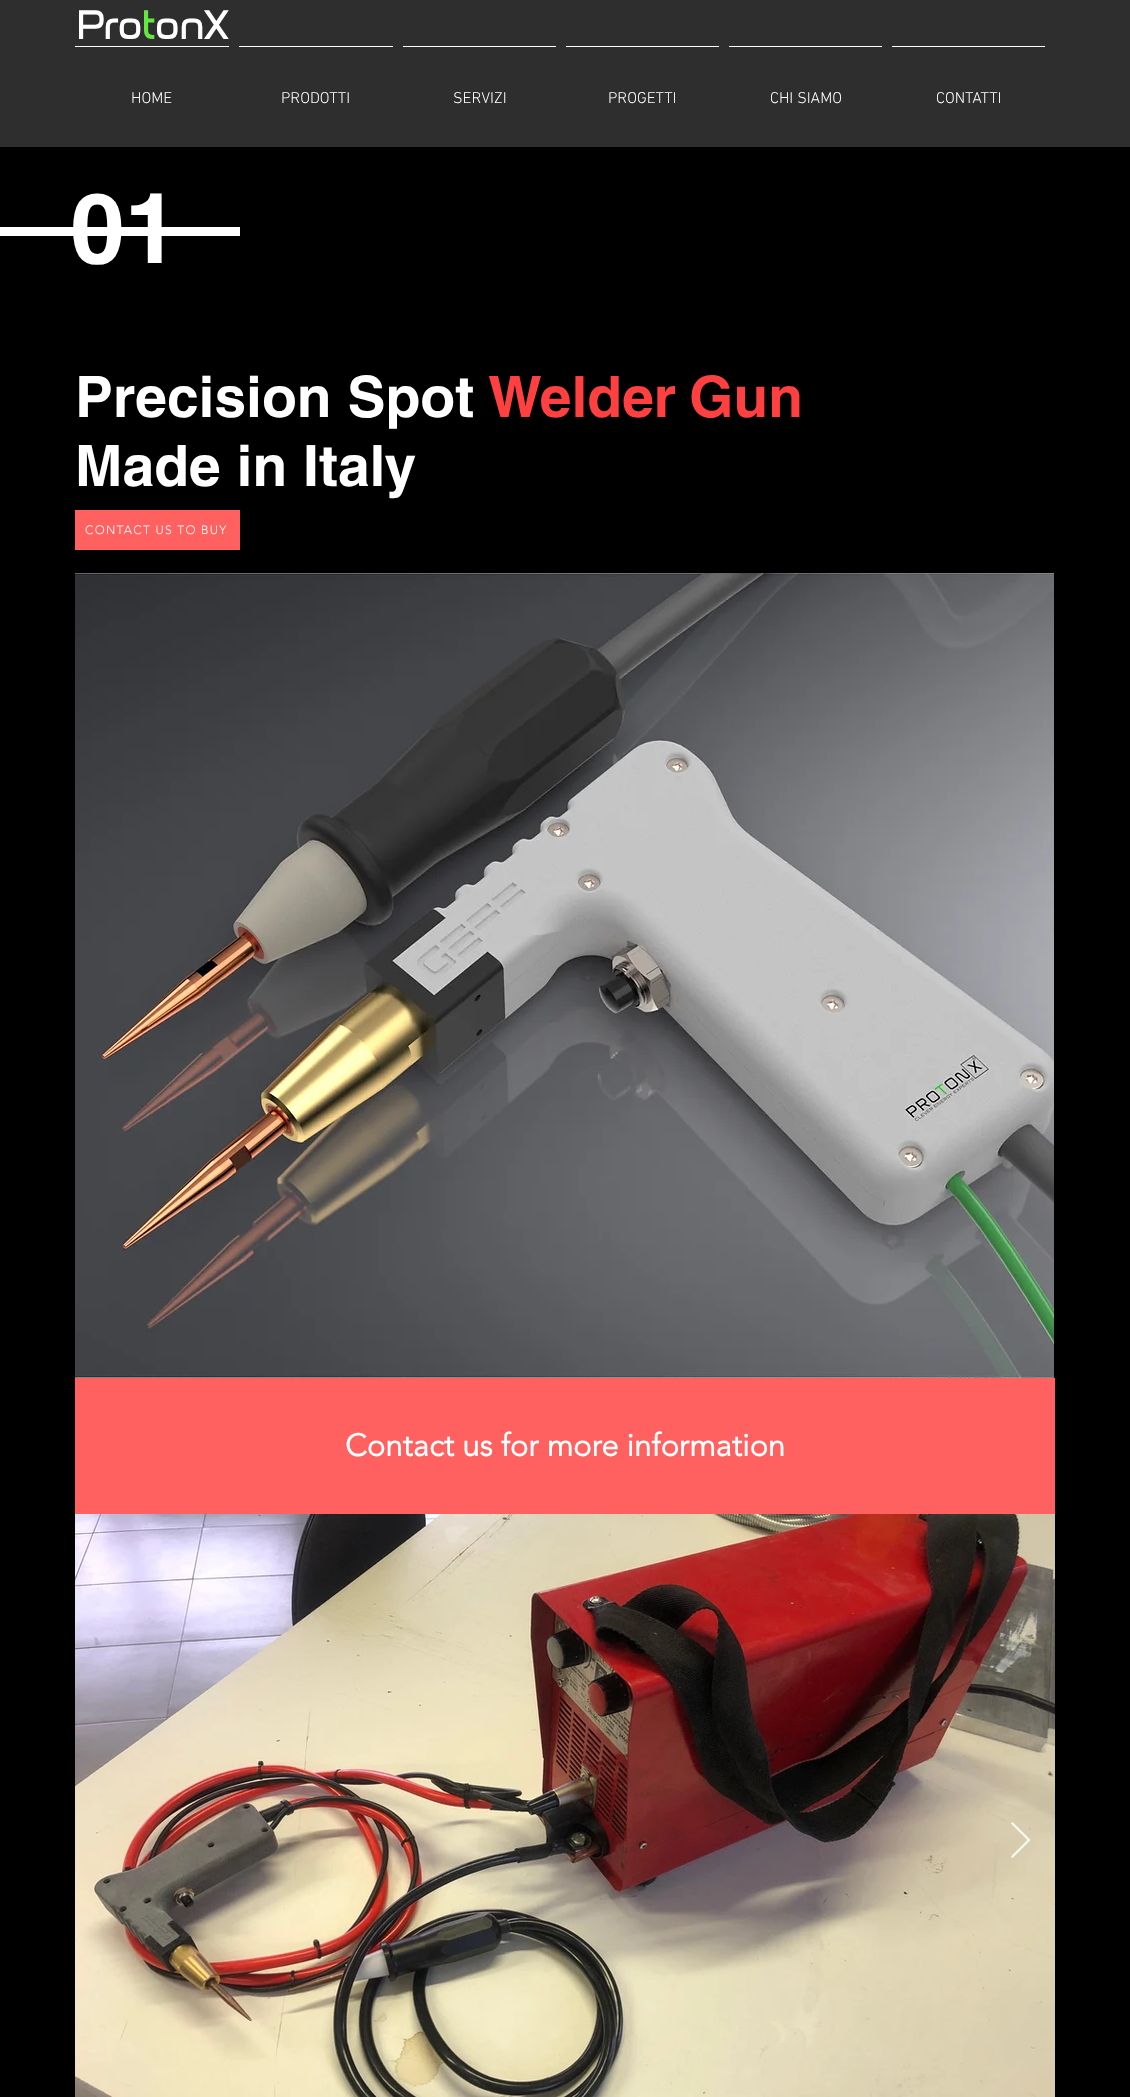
async function draw(canvas) {
  canvas.width = 1130
  canvas.height = 2097
  const ctx = canvas.getContext('2d')
  ctx.miterLimit = 4
  ctx.fontKerning = 'normal'
  async function loadImage(src) {
    const img = new Image()
    img.src = src
    await img.decode()
    return img
  }

  ctx.fillStyle = '#000'
  ctx.fillRect(0, 0, 1130, 2097)
  ctx.fillStyle = '#2f2e2e'
  ctx.fillRect(0, 0, 1130, 147)
  ctx.font = '42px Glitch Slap'
  ctx.fillStyle = '#fff'
  ctx.fillText('Pro', 79, 39)
  ctx.fillStyle = '#62e841'
  ctx.fillText('t', 144, 39)
  ctx.fillStyle = '#fff'
  ctx.fillText('onX', 157, 39)
  ctx.fillRect(75, 46, 154, 1)
  ctx.font = '300 16px "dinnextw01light"'
  ctx.fillText('HOME', 131, 103)
  ctx.fillRect(239, 46, 154, 1)
  ctx.fillText('PRODOTTI', 281, 103)
  ctx.fillRect(403, 46, 153, 1)
  ctx.fillText('SERVIZI', 453, 103)
  ctx.fillRect(566, 46, 153, 1)
  ctx.fillText('PROGETTI', 608, 103)
  ctx.fillRect(729, 46, 153, 1)
  ctx.fillText('CHI SIAMO', 770, 103)
  ctx.fillRect(892, 46, 153, 1)
  ctx.fillText('CONTATTI', 936, 103)
  ctx.font = 'bold 98px helvetica'
  ctx.fillText('01', 70, 263)
  ctx.fillRect(0, 227, 240, 9)
  ctx.font = 'bold 57px helvetica'
  ctx.fillText('Precision Spot', 75, 417)
  ctx.fillStyle = '#ff4040'
  ctx.fillText('Welder', 488, 417)
  ctx.fillText('Gun', 689, 417)
  ctx.fillStyle = '#fff'
  ctx.fillText('Made in Italy', 75, 486)
  ctx.fillStyle = '#ff6161'
  ctx.fillRect(75, 510, 165, 40)
  ctx.letterSpacing = '1.25px'
  ctx.font = '300 12px "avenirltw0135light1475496"'
  ctx.fillStyle = '#fff'
  ctx.fillText('CONTACT US TO BUY', 85, 534)
  ctx.drawImage(await loadImage('image0.png'), 75, 573, 979, 805)
  ctx.fillStyle = '#ff6161'
  ctx.fillRect(75, 1378, 980, 136)
  ctx.letterSpacing = '0px'
  ctx.font = 'bold 31px "avenirltw0135light1475496"'
  ctx.fillStyle = '#fff'
  ctx.fillText('Contact us for more information', 345, 1456)
  ctx.drawImage(await loadImage('image1.png'), 75, 1514, 980, 583)
  ctx.fillStyle = '#ffffffe6'
  ctx.beginPath()
  ctx.moveTo(1011, 1823.5)
  ctx.lineTo(1012.5, 1822)
  ctx.lineTo(1030.5, 1840)
  ctx.lineTo(1012.5, 1858)
  ctx.lineTo(1011, 1856.5)
  ctx.lineTo(1027.5, 1840)
  ctx.closePath()
  ctx.fill()
}

draw(document.querySelector('canvas'))
